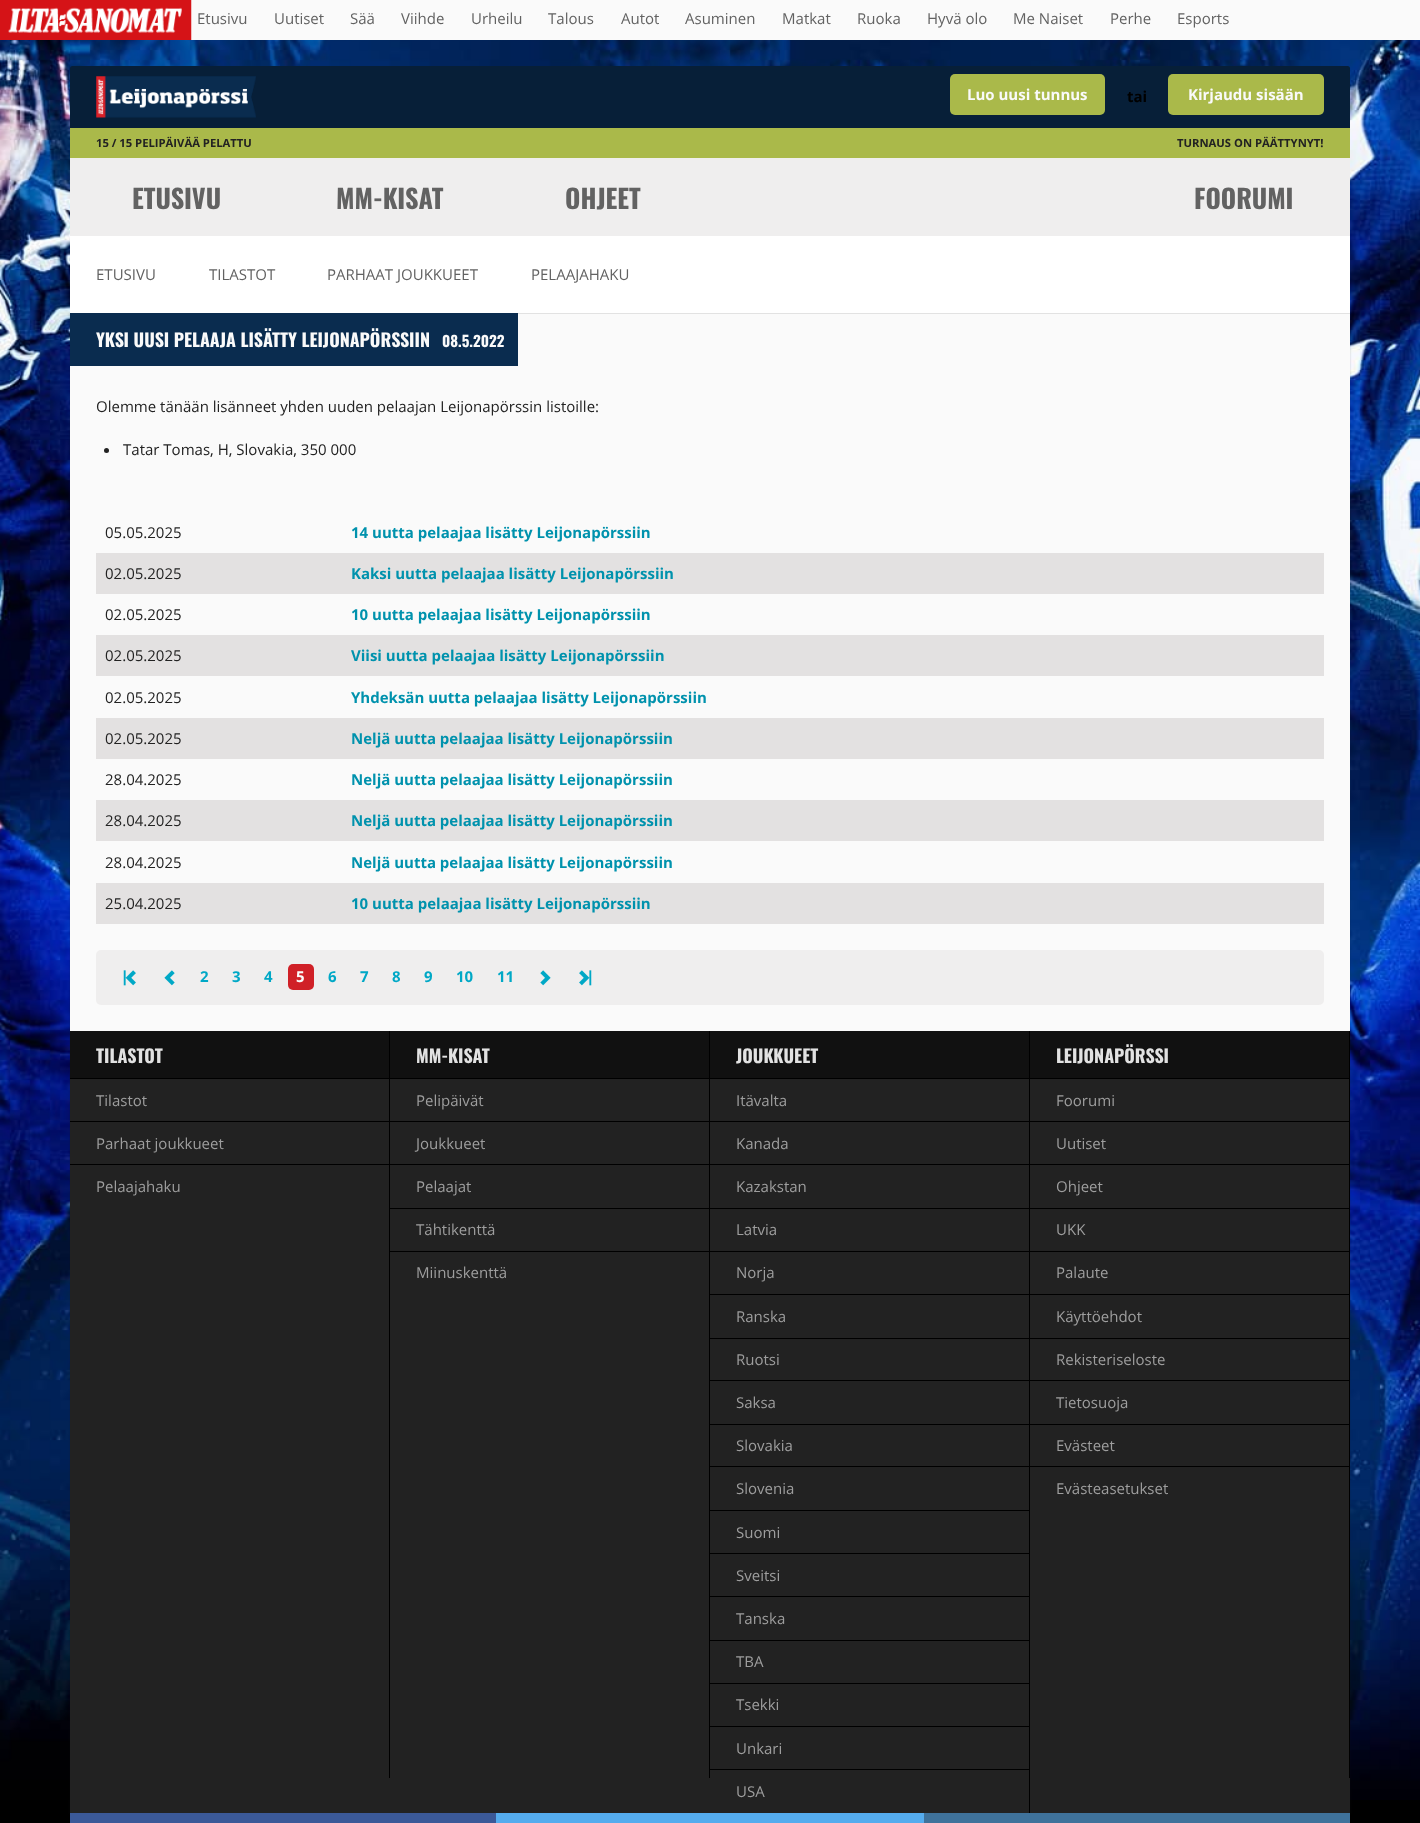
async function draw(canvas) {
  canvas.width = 1420
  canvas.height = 1823
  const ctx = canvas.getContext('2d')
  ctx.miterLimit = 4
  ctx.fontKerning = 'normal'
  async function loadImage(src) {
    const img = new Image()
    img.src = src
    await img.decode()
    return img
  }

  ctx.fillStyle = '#000'
  ctx.fillRect(0, 0, 1420, 1823)
  ctx.drawImage(await loadImage('image0.png'), 0, 40, 1420, 1760)
  ctx.fillStyle = '#fafafa'
  ctx.fillRect(191, 0, 1229, 40)
  ctx.drawImage(await loadImage('image1.png'), 0, 0, 192, 40)
  ctx.font = '15px Open Sans'
  ctx.fillStyle = '#626262'
  ctx.fillText('Etusivu', 197, 24)
  ctx.fillText('Uutiset', 274, 24)
  ctx.fillText('Sää', 350, 24)
  ctx.fillText('Viihde', 401, 24)
  ctx.fillText('Urheilu', 471, 24)
  ctx.fillText('Talous', 548, 24)
  ctx.fillText('Autot', 621, 24)
  ctx.fillText('Asuminen', 685, 24)
  ctx.fillText('Matkat', 782, 24)
  ctx.fillText('Ruoka', 857, 24)
  ctx.fillText('Hyvä olo', 927, 24)
  ctx.fillText('Me Naiset', 1013, 24)
  ctx.fillText('Perhe', 1110, 24)
  ctx.fillText('Esports', 1177, 24)
  ctx.fillStyle = '#071f38'
  ctx.beginPath()
  ctx.roundRect(70, 66, 1280, 62, [2.5, 2.5, 0, 0])
  ctx.fill()
  ctx.drawImage(await loadImage('image2.png'), 96, 76, 160, 42)
  ctx.fillStyle = '#aab94a'
  ctx.beginPath()
  ctx.roundRect(950, 74, 155, 41, 5)
  ctx.fill()
  ctx.font = 'bold 15px Open Sans'
  ctx.fillStyle = '#fafafa'
  ctx.fillText('Luo uusi tunnus', 967, 100)
  ctx.fillStyle = '#000'
  ctx.fillText('tai', 1127, 102)
  ctx.fillStyle = '#aab94a'
  ctx.beginPath()
  ctx.roundRect(1168, 74, 156, 41, 5)
  ctx.fill()
  ctx.fillStyle = '#fafafa'
  ctx.fillText('Kirjaudu sisään', 1188, 100)
  ctx.fillStyle = '#aab94a'
  ctx.fillRect(70, 128, 1280, 30)
  ctx.font = 'bold 11.25px Open Sans'
  ctx.fillStyle = '#222'
  ctx.fillText('15 / 15 PELIPÄIVÄÄ PELATTU', 96, 147)
  ctx.fillText('TURNAUS ON PÄÄTTYNYT!', 1177, 147)
  ctx.fillStyle = '#efeeee'
  ctx.fillRect(70, 158, 1280, 78)
  ctx.font = 'bold 26.25px Oswald'
  ctx.fillStyle = '#626262'
  ctx.fillText('ETUSIVU', 132, 209)
  ctx.fillText('MM-KISAT', 336, 209)
  ctx.fillText('OHJEET', 565, 209)
  ctx.fillText('FOORUMI', 1194, 209)
  ctx.fillStyle = '#22222233'
  ctx.filter = 'blur(1px)'
  ctx.beginPath()
  ctx.rect(70, 314, 1280, 719)
  ctx.fill()
  ctx.filter = 'none'
  ctx.fillStyle = '#fff'
  ctx.fillRect(70, 236, 1280, 77)
  ctx.font = '15px Open Sans'
  ctx.fillStyle = '#626262'
  ctx.fillText('ETUSIVU', 96, 280)
  ctx.fillText('TILASTOT', 209, 280)
  ctx.fillText('PARHAAT JOUKKUEET', 327, 280)
  ctx.fillText('PELAAJAHAKU', 531, 280)
  ctx.fillStyle = '#fafafa'
  ctx.fillRect(70, 314, 1280, 717)
  ctx.fillStyle = '#e2e2e2'
  ctx.fillRect(518, 313, 832, 1)
  ctx.fillStyle = '#0a2c4f'
  ctx.fillRect(70, 313, 448, 53)
  ctx.font = 'bold 18px Oswald'
  ctx.fillStyle = '#fafafa'
  ctx.fillText('YKSI UUSI PELAAJA LISÄTTY LEIJONAPÖRSSIIN', 96, 347)
  ctx.font = 'bold 15px Oswald'
  ctx.fillText('08.5.2022', 442, 347)
  ctx.font = '15px Open Sans'
  ctx.fillStyle = '#222'
  ctx.fillText('Olemme tänään lisänneet yhden uuden pelaajan Leijonapörssin listoille:', 96, 412)
  ctx.beginPath()
  ctx.arc(106.5, 450.5, 2.5, 0, 2 * Math.PI)
  ctx.fill()
  ctx.fillText('Tatar Tomas, H, Slovakia, 350 000', 123, 455)
  ctx.fillText('05.05.2025', 105, 538)
  ctx.font = 'bold 15px Open Sans'
  ctx.fillStyle = '#0092ad'
  ctx.fillText('14 uutta pelaajaa lisätty Leijonapörssiin', 351, 538)
  ctx.fillStyle = '#e3e1e1'
  ctx.fillRect(96, 553, 1228, 41)
  ctx.font = '15px Open Sans'
  ctx.fillStyle = '#222'
  ctx.fillText('02.05.2025', 105, 579)
  ctx.font = 'bold 15px Open Sans'
  ctx.fillStyle = '#0092ad'
  ctx.fillText('Kaksi uutta pelaajaa lisätty Leijonapörssiin', 351, 579)
  ctx.font = '15px Open Sans'
  ctx.fillStyle = '#222'
  ctx.fillText('02.05.2025', 105, 620)
  ctx.font = 'bold 15px Open Sans'
  ctx.fillStyle = '#0092ad'
  ctx.fillText('10 uutta pelaajaa lisätty Leijonapörssiin', 351, 620)
  ctx.fillStyle = '#e3e1e1'
  ctx.fillRect(96, 635, 1228, 41)
  ctx.font = '15px Open Sans'
  ctx.fillStyle = '#222'
  ctx.fillText('02.05.2025', 105, 661)
  ctx.font = 'bold 15px Open Sans'
  ctx.fillStyle = '#0092ad'
  ctx.fillText('Viisi uutta pelaajaa lisätty Leijonapörssiin', 351, 661)
  ctx.font = '15px Open Sans'
  ctx.fillStyle = '#222'
  ctx.fillText('02.05.2025', 105, 703)
  ctx.font = 'bold 15px Open Sans'
  ctx.fillStyle = '#0092ad'
  ctx.fillText('Yhdeksän uutta pelaajaa lisätty Leijonapörssiin', 351, 703)
  ctx.fillStyle = '#e3e1e1'
  ctx.fillRect(96, 718, 1228, 41)
  ctx.font = '15px Open Sans'
  ctx.fillStyle = '#222'
  ctx.fillText('02.05.2025', 105, 744)
  ctx.font = 'bold 15px Open Sans'
  ctx.fillStyle = '#0092ad'
  ctx.fillText('Neljä uutta pelaajaa lisätty Leijonapörssiin', 351, 744)
  ctx.font = '15px Open Sans'
  ctx.fillStyle = '#222'
  ctx.fillText('28.04.2025', 105, 785)
  ctx.font = 'bold 15px Open Sans'
  ctx.fillStyle = '#0092ad'
  ctx.fillText('Neljä uutta pelaajaa lisätty Leijonapörssiin', 351, 785)
  ctx.fillStyle = '#e3e1e1'
  ctx.fillRect(96, 800, 1228, 41)
  ctx.font = '15px Open Sans'
  ctx.fillStyle = '#222'
  ctx.fillText('28.04.2025', 105, 826)
  ctx.font = 'bold 15px Open Sans'
  ctx.fillStyle = '#0092ad'
  ctx.fillText('Neljä uutta pelaajaa lisätty Leijonapörssiin', 351, 826)
  ctx.font = '15px Open Sans'
  ctx.fillStyle = '#222'
  ctx.fillText('28.04.2025', 105, 868)
  ctx.font = 'bold 15px Open Sans'
  ctx.fillStyle = '#0092ad'
  ctx.fillText('Neljä uutta pelaajaa lisätty Leijonapörssiin', 351, 868)
  ctx.fillStyle = '#e3e1e1'
  ctx.fillRect(96, 883, 1228, 41)
  ctx.font = '15px Open Sans'
  ctx.fillStyle = '#222'
  ctx.fillText('25.04.2025', 105, 909)
  ctx.font = 'bold 15px Open Sans'
  ctx.fillStyle = '#0092ad'
  ctx.fillText('10 uutta pelaajaa lisätty Leijonapörssiin', 351, 909)
  ctx.fillStyle = '#efeeee'
  ctx.beginPath()
  ctx.roundRect(96, 950, 1228, 55, 5)
  ctx.fill()
  ctx.drawImage(await loadImage('image3.png'), 123, 970, 13, 16)
  ctx.drawImage(await loadImage('image4.png'), 164, 970, 11, 16)
  ctx.fillStyle = '#00a8c6'
  ctx.fillText('2', 200, 982)
  ctx.fillText('3', 232, 982)
  ctx.fillText('4', 264, 982)
  ctx.fillStyle = '#d02027'
  ctx.beginPath()
  ctx.roundRect(288, 964, 26, 26, 5)
  ctx.fill()
  ctx.fillStyle = '#fafafa'
  ctx.fillText('5', 296, 982)
  ctx.fillStyle = '#00a8c6'
  ctx.fillText('6', 328, 982)
  ctx.fillText('7', 360, 982)
  ctx.fillText('8', 392, 982)
  ctx.fillText('9', 424, 982)
  ctx.fillText('10', 456, 982)
  ctx.fillText('11', 497, 982)
  ctx.drawImage(await loadImage('image5.png'), 540, 970, 11, 16)
  ctx.drawImage(await loadImage('image6.png'), 579, 970, 13, 16)
  ctx.fillStyle = '#22222233'
  ctx.filter = 'blur(1px)'
  ctx.beginPath()
  ctx.rect(70, 1033, 1280, 781)
  ctx.fill()
  ctx.filter = 'none'
  ctx.fillStyle = '#222'
  ctx.fillRect(70, 1079, 1280, 734)
  ctx.fillStyle = '#000'
  ctx.fillRect(389, 1031, 1, 747)
  ctx.fillStyle = '#111'
  ctx.fillRect(70, 1031, 319, 47)
  ctx.fillStyle = '#000'
  ctx.fillRect(70, 1078, 319, 1)
  ctx.font = 'bold 18px Oswald'
  ctx.fillStyle = '#e2e2e2'
  ctx.fillText('TILASTOT', 96, 1063)
  ctx.fillStyle = '#000'
  ctx.fillRect(70, 1121, 319, 1)
  ctx.font = '15px Open Sans'
  ctx.fillStyle = '#9e9e9e'
  ctx.fillText('Tilastot', 96, 1106)
  ctx.fillStyle = '#000'
  ctx.fillRect(70, 1164, 319, 1)
  ctx.fillStyle = '#9e9e9e'
  ctx.fillText('Parhaat joukkueet', 96, 1149)
  ctx.fillText('Pelaajahaku', 96, 1192)
  ctx.fillStyle = '#000'
  ctx.fillRect(709, 1031, 1, 747)
  ctx.fillStyle = '#111'
  ctx.fillRect(390, 1031, 319, 47)
  ctx.fillStyle = '#000'
  ctx.fillRect(390, 1078, 319, 1)
  ctx.font = 'bold 18px Oswald'
  ctx.fillStyle = '#e2e2e2'
  ctx.fillText('MM-KISAT', 416, 1063)
  ctx.fillStyle = '#000'
  ctx.fillRect(390, 1121, 319, 1)
  ctx.font = '15px Open Sans'
  ctx.fillStyle = '#9e9e9e'
  ctx.fillText('Pelipäivät', 416, 1106)
  ctx.fillStyle = '#000'
  ctx.fillRect(390, 1164, 319, 1)
  ctx.fillStyle = '#9e9e9e'
  ctx.fillText('Joukkueet', 416, 1149)
  ctx.fillStyle = '#000'
  ctx.fillRect(390, 1208, 319, 1)
  ctx.fillStyle = '#9e9e9e'
  ctx.fillText('Pelaajat', 416, 1192)
  ctx.fillStyle = '#000'
  ctx.fillRect(390, 1251, 319, 1)
  ctx.fillStyle = '#9e9e9e'
  ctx.fillText('Tähtikenttä', 416, 1235)
  ctx.fillText('Miinuskenttä', 416, 1278)
  ctx.fillStyle = '#000'
  ctx.fillRect(1029, 1031, 1, 782)
  ctx.fillStyle = '#111'
  ctx.fillRect(710, 1031, 319, 47)
  ctx.fillStyle = '#000'
  ctx.fillRect(710, 1078, 319, 1)
  ctx.font = 'bold 18px Oswald'
  ctx.fillStyle = '#e2e2e2'
  ctx.fillText('JOUKKUEET', 736, 1063)
  ctx.fillStyle = '#000'
  ctx.fillRect(710, 1121, 319, 1)
  ctx.font = '15px Open Sans'
  ctx.fillStyle = '#9e9e9e'
  ctx.fillText('Itävalta', 736, 1106)
  ctx.fillStyle = '#000'
  ctx.fillRect(710, 1164, 319, 1)
  ctx.fillStyle = '#9e9e9e'
  ctx.fillText('Kanada', 736, 1149)
  ctx.fillStyle = '#000'
  ctx.fillRect(710, 1208, 319, 1)
  ctx.fillStyle = '#9e9e9e'
  ctx.fillText('Kazakstan', 736, 1192)
  ctx.fillStyle = '#000'
  ctx.fillRect(710, 1251, 319, 1)
  ctx.fillStyle = '#9e9e9e'
  ctx.fillText('Latvia', 736, 1235)
  ctx.fillStyle = '#000'
  ctx.fillRect(710, 1294, 319, 1)
  ctx.fillStyle = '#9e9e9e'
  ctx.fillText('Norja', 736, 1278)
  ctx.fillStyle = '#000'
  ctx.fillRect(710, 1338, 319, 1)
  ctx.fillStyle = '#9e9e9e'
  ctx.fillText('Ranska', 736, 1322)
  ctx.fillStyle = '#000'
  ctx.fillRect(710, 1380, 319, 1)
  ctx.fillStyle = '#9e9e9e'
  ctx.fillText('Ruotsi', 736, 1365)
  ctx.fillStyle = '#000'
  ctx.fillRect(710, 1424, 319, 1)
  ctx.fillStyle = '#9e9e9e'
  ctx.fillText('Saksa', 736, 1408)
  ctx.fillStyle = '#000'
  ctx.fillRect(710, 1466, 319, 1)
  ctx.fillStyle = '#9e9e9e'
  ctx.fillText('Slovakia', 736, 1451)
  ctx.fillStyle = '#000'
  ctx.fillRect(710, 1510, 319, 1)
  ctx.fillStyle = '#9e9e9e'
  ctx.fillText('Slovenia', 736, 1494)
  ctx.fillStyle = '#000'
  ctx.fillRect(710, 1553, 319, 1)
  ctx.fillStyle = '#9e9e9e'
  ctx.fillText('Suomi', 736, 1538)
  ctx.fillStyle = '#000'
  ctx.fillRect(710, 1596, 319, 1)
  ctx.fillStyle = '#9e9e9e'
  ctx.fillText('Sveitsi', 736, 1581)
  ctx.fillStyle = '#000'
  ctx.fillRect(710, 1640, 319, 1)
  ctx.fillStyle = '#9e9e9e'
  ctx.fillText('Tanska', 736, 1624)
  ctx.fillStyle = '#000'
  ctx.fillRect(710, 1683, 319, 1)
  ctx.fillStyle = '#9e9e9e'
  ctx.fillText('TBA', 736, 1667)
  ctx.fillStyle = '#000'
  ctx.fillRect(710, 1726, 319, 1)
  ctx.fillStyle = '#9e9e9e'
  ctx.fillText('Tsekki', 736, 1710)
  ctx.fillStyle = '#000'
  ctx.fillRect(710, 1769, 319, 1)
  ctx.fillStyle = '#9e9e9e'
  ctx.fillText('Unkari', 736, 1754)
  ctx.fillText('USA', 736, 1797)
  ctx.fillStyle = '#000'
  ctx.fillRect(1349, 1031, 1, 747)
  ctx.fillStyle = '#111'
  ctx.fillRect(1030, 1031, 319, 47)
  ctx.fillStyle = '#000'
  ctx.fillRect(1030, 1078, 319, 1)
  ctx.font = 'bold 18px Oswald'
  ctx.fillStyle = '#e2e2e2'
  ctx.fillText('LEIJONAPÖRSSI', 1056, 1063)
  ctx.fillStyle = '#000'
  ctx.fillRect(1030, 1121, 319, 1)
  ctx.font = '15px Open Sans'
  ctx.fillStyle = '#9e9e9e'
  ctx.fillText('Foorumi', 1056, 1106)
  ctx.fillStyle = '#000'
  ctx.fillRect(1030, 1164, 319, 1)
  ctx.fillStyle = '#9e9e9e'
  ctx.fillText('Uutiset', 1056, 1149)
  ctx.fillStyle = '#000'
  ctx.fillRect(1030, 1208, 319, 1)
  ctx.fillStyle = '#9e9e9e'
  ctx.fillText('Ohjeet', 1056, 1192)
  ctx.fillStyle = '#000'
  ctx.fillRect(1030, 1251, 319, 1)
  ctx.fillStyle = '#9e9e9e'
  ctx.fillText('UKK', 1056, 1235)
  ctx.fillStyle = '#000'
  ctx.fillRect(1030, 1294, 319, 1)
  ctx.fillStyle = '#9e9e9e'
  ctx.fillText('Palaute', 1056, 1278)
  ctx.fillStyle = '#000'
  ctx.fillRect(1030, 1338, 319, 1)
  ctx.fillStyle = '#9e9e9e'
  ctx.fillText('Käyttöehdot', 1056, 1322)
  ctx.fillStyle = '#000'
  ctx.fillRect(1030, 1380, 319, 1)
  ctx.fillStyle = '#9e9e9e'
  ctx.fillText('Rekisteriseloste', 1056, 1365)
  ctx.fillStyle = '#000'
  ctx.fillRect(1030, 1424, 319, 1)
  ctx.fillStyle = '#9e9e9e'
  ctx.fillText('Tietosuoja', 1056, 1408)
  ctx.fillStyle = '#000'
  ctx.fillRect(1030, 1466, 319, 1)
  ctx.fillStyle = '#9e9e9e'
  ctx.fillText('Evästeet', 1056, 1451)
  ctx.fillText('Evästeasetukset', 1056, 1494)
  ctx.fillStyle = '#3b5998'
  ctx.fillRect(70, 1813, 426, 10)
  ctx.fillStyle = '#55acee'
  ctx.fillRect(496, 1813, 428, 10)
  ctx.fillStyle = '#3f729b'
  ctx.fillRect(924, 1813, 426, 10)
}

draw(document.querySelector('canvas'))
